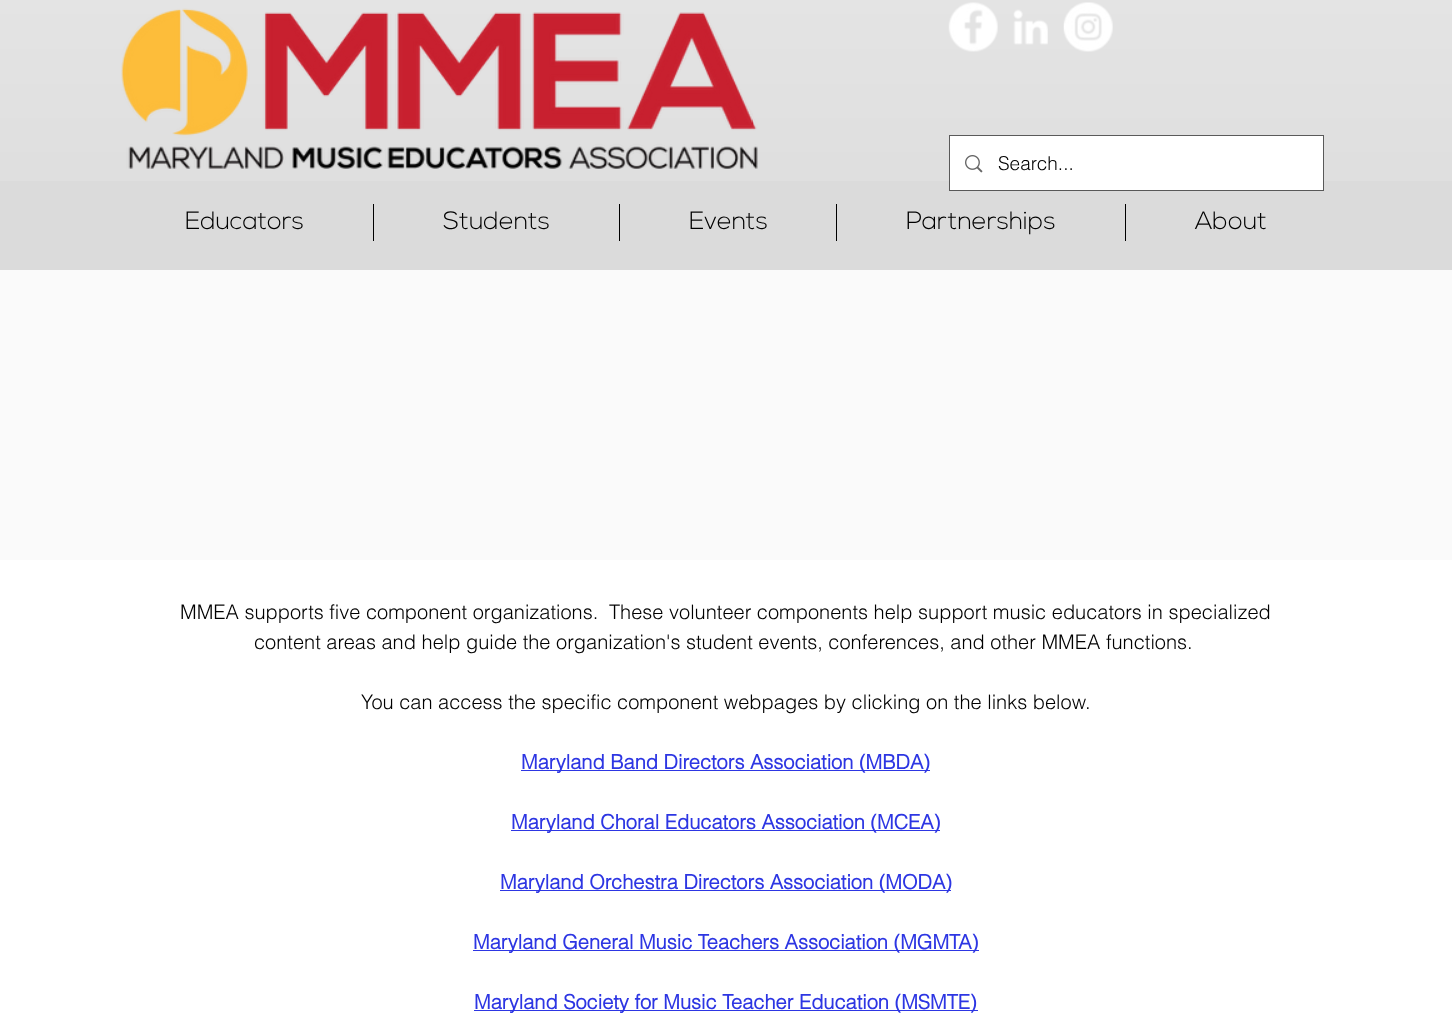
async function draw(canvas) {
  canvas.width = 1452
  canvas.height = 1013
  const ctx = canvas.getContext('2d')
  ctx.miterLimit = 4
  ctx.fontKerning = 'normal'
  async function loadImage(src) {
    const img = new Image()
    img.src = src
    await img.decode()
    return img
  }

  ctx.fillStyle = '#fff'
  ctx.fillRect(0, 0, 1452, 1013)
  ctx.fillStyle = '#dbdbdb'
  ctx.fillRect(0, 0, 1452, 270)
  ctx.drawImage(await loadImage('image0.png'), 0, 0, 1452, 181)
  ctx.drawImage(await loadImage('image1.png'), 121, 8, 637, 161)
  ctx.drawImage(await loadImage('image2.png'), 948, 2, 50, 50)
  ctx.drawImage(await loadImage('image3.png'), 1013, 9, 35, 36)
  ctx.drawImage(await loadImage('image4.png'), 1063, 2, 50, 50)
  ctx.strokeStyle = '#00000099'
  ctx.strokeRect(949.5, 135.5, 374, 55)
  ctx.fillStyle = '#fff'
  ctx.fillRect(950, 136, 373, 54)
  ctx.drawImage(await loadImage('image5.png'), 965, 155, 18, 18)
  ctx.font = '300 19px helvetica'
  ctx.fillStyle = '#000'
  ctx.fillText('Search...', 998, 170)
  ctx.font = '300 25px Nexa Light'
  ctx.fillText('Educators', 185, 229)
  ctx.fillRect(373, 204, 1, 37)
  ctx.fillText('Students', 443, 229)
  ctx.fillRect(619, 204, 1, 37)
  ctx.fillText('Events', 689, 229)
  ctx.fillRect(836, 204, 1, 37)
  ctx.fillText('Partnerships', 906, 229)
  ctx.fillRect(1125, 204, 1, 37)
  ctx.fillText('About', 1195, 229)
  ctx.fillStyle = '#fafafa'
  ctx.fillRect(0, 270, 1452, 290)
  ctx.font = '300 20px helvetica'
  ctx.fillStyle = '#000'
  ctx.fillText('MMEA supports five component organizations.', 180, 619)
  ctx.fillText('These volunteer components help support music educators in specialized', 609, 619)
  ctx.fillText('content areas and help guide the organization\'s student events, conferences, and other MMEA functions.', 254, 649)
  ctx.fillText('You can access the specific component webpages by clicking on the links below.', 361, 709)
  ctx.fillStyle = '#2d36e3'
  ctx.fillRect(521, 770, 409, 1)
  ctx.font = 'bold 20px helvetica'
  ctx.fillText('Maryland Band Directors Association (MBDA)', 521, 769)
  ctx.fillRect(511, 830, 429, 1)
  ctx.fillText('Maryland Choral Educators Association (MCEA)', 511, 829)
  ctx.fillRect(500, 890, 451, 1)
  ctx.fillText('Maryland Orchestra Directors Association (MODA)', 500, 889)
  ctx.fillRect(473, 950, 506, 1)
  ctx.fillText('Maryland General Music Teachers Association (MGMTA)', 473, 949)
  ctx.fillRect(474, 1010, 504, 1)
  ctx.fillText('Maryland Society for Music Teacher Education (MSMTE)', 474, 1009)
}

draw(document.querySelector('canvas'))
